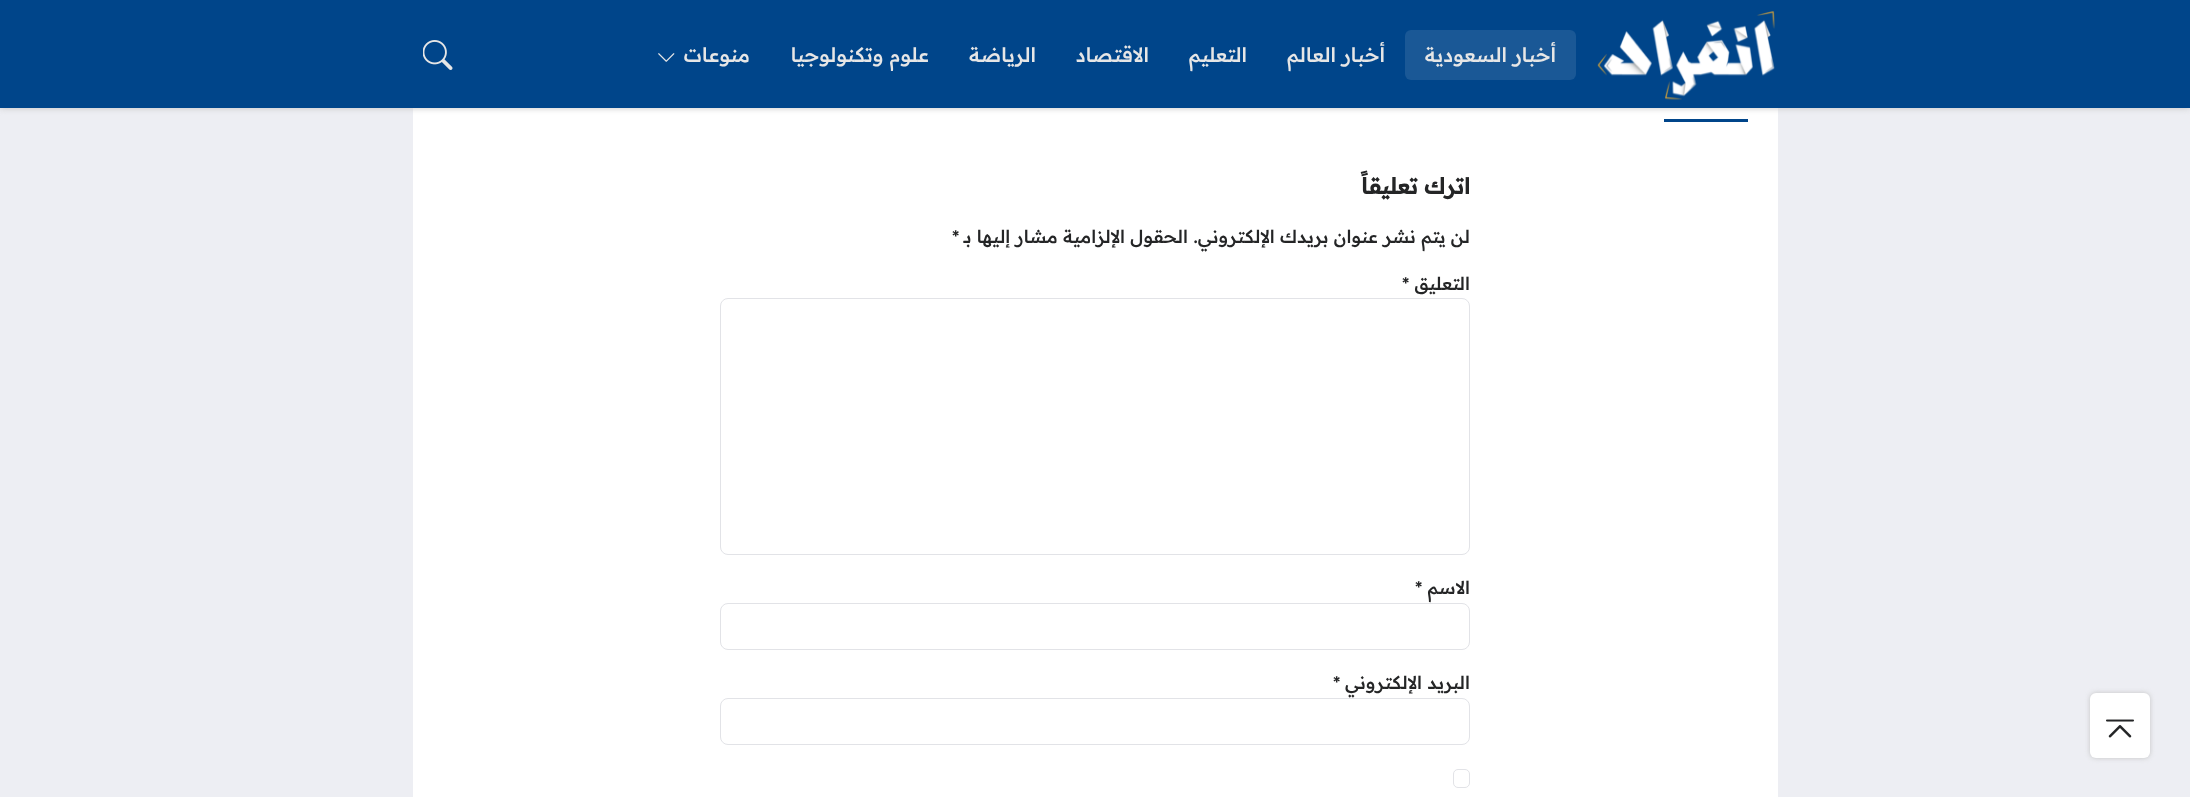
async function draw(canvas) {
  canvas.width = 2190
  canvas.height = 797
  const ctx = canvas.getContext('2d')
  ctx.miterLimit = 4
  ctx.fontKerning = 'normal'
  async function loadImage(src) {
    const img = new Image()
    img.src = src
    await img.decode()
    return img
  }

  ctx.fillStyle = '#edeef3'
  ctx.fillRect(0, 0, 2190, 797)
  ctx.fillStyle = '#fff'
  ctx.fillRect(413, 108, 1365, 689)
  ctx.fillStyle = '#c3c3c3'
  ctx.filter = 'blur(3px)'
  ctx.beginPath()
  ctx.rect(0, 0, 2190, 108)
  ctx.fill()
  ctx.filter = 'none'
  ctx.fillStyle = '#00458a'
  ctx.fillRect(0, 0, 2190, 108)
  ctx.drawImage(await loadImage('image0.png'), 1597, 11, 178, 89)
  ctx.fillStyle = '#1a5896'
  ctx.beginPath()
  ctx.roundRect(1405, 30, 171, 50, 6)
  ctx.fill()
  ctx.direction = 'rtl'
  ctx.font = '500 20px Readex Pro'
  ctx.fillStyle = '#e6e6e6'
  ctx.fillText('أخبار السعودية', 1556, 62)
  ctx.fillText('أخبار العالم', 1385, 62)
  ctx.fillText('التعليم', 1247, 62)
  ctx.fillText('الاقتصاد', 1149, 62)
  ctx.fillText('الرياضة', 1036, 62)
  ctx.fillText('علوم وتكنولوجيا', 929, 62)
  ctx.fillText('منوعات', 750, 62)
  ctx.drawImage(await loadImage('image1.png'), 658, 53, 17, 9)
  ctx.drawImage(await loadImage('image2.png'), 423, 40, 30, 30)
  ctx.fillStyle = '#00458a'
  ctx.fillRect(1664, 119, 84, 3)
  ctx.font = 'bold 22px Readex Pro'
  ctx.fillStyle = '#242526'
  ctx.fillText('اترك تعليقاً', 1470, 194)
  ctx.font = '500 18px Readex Pro'
  ctx.fillText('لن يتم نشر عنوان بريدك الإلكتروني.', 1470, 243)
  ctx.fillText('الحقول الإلزامية مشار إليها بـ', 1188, 243)
  ctx.direction = 'ltr'
  ctx.fillText('*', 952, 243)
  ctx.direction = 'rtl'
  ctx.fillText('التعليق', 1470, 290)
  ctx.direction = 'ltr'
  ctx.fillText('*', 1402, 290)
  ctx.beginPath()
  ctx.roundRect(720.5, 298.5, 749, 256, 7.5)
  ctx.strokeStyle = '#e2e3e7'
  ctx.stroke()
  ctx.direction = 'rtl'
  ctx.fillText('الاسم', 1470, 594)
  ctx.direction = 'ltr'
  ctx.fillText('*', 1415, 594)
  ctx.beginPath()
  ctx.roundRect(720.5, 603.5, 749, 46, 7.5)
  ctx.stroke()
  ctx.direction = 'rtl'
  ctx.fillText('البريد الإلكتروني', 1470, 689)
  ctx.direction = 'ltr'
  ctx.fillText('*', 1333, 689)
  ctx.beginPath()
  ctx.roundRect(720.5, 698.5, 749, 46, 7.5)
  ctx.stroke()
  ctx.beginPath()
  ctx.roundRect(1453.5, 769.5, 16, 18, 4.5)
  ctx.stroke()
  ctx.fillStyle = '#c3c3c3'
  ctx.filter = 'blur(2.5px)'
  ctx.beginPath()
  ctx.roundRect(2090, 693, 60, 65, 6)
  ctx.fill()
  ctx.filter = 'none'
  ctx.fillStyle = '#fff'
  ctx.beginPath()
  ctx.roundRect(2090, 693, 60, 65, 6)
  ctx.fill()
  ctx.drawImage(await loadImage('image3.png'), 2106, 719, 28, 19)
}

draw(document.querySelector('canvas'))
